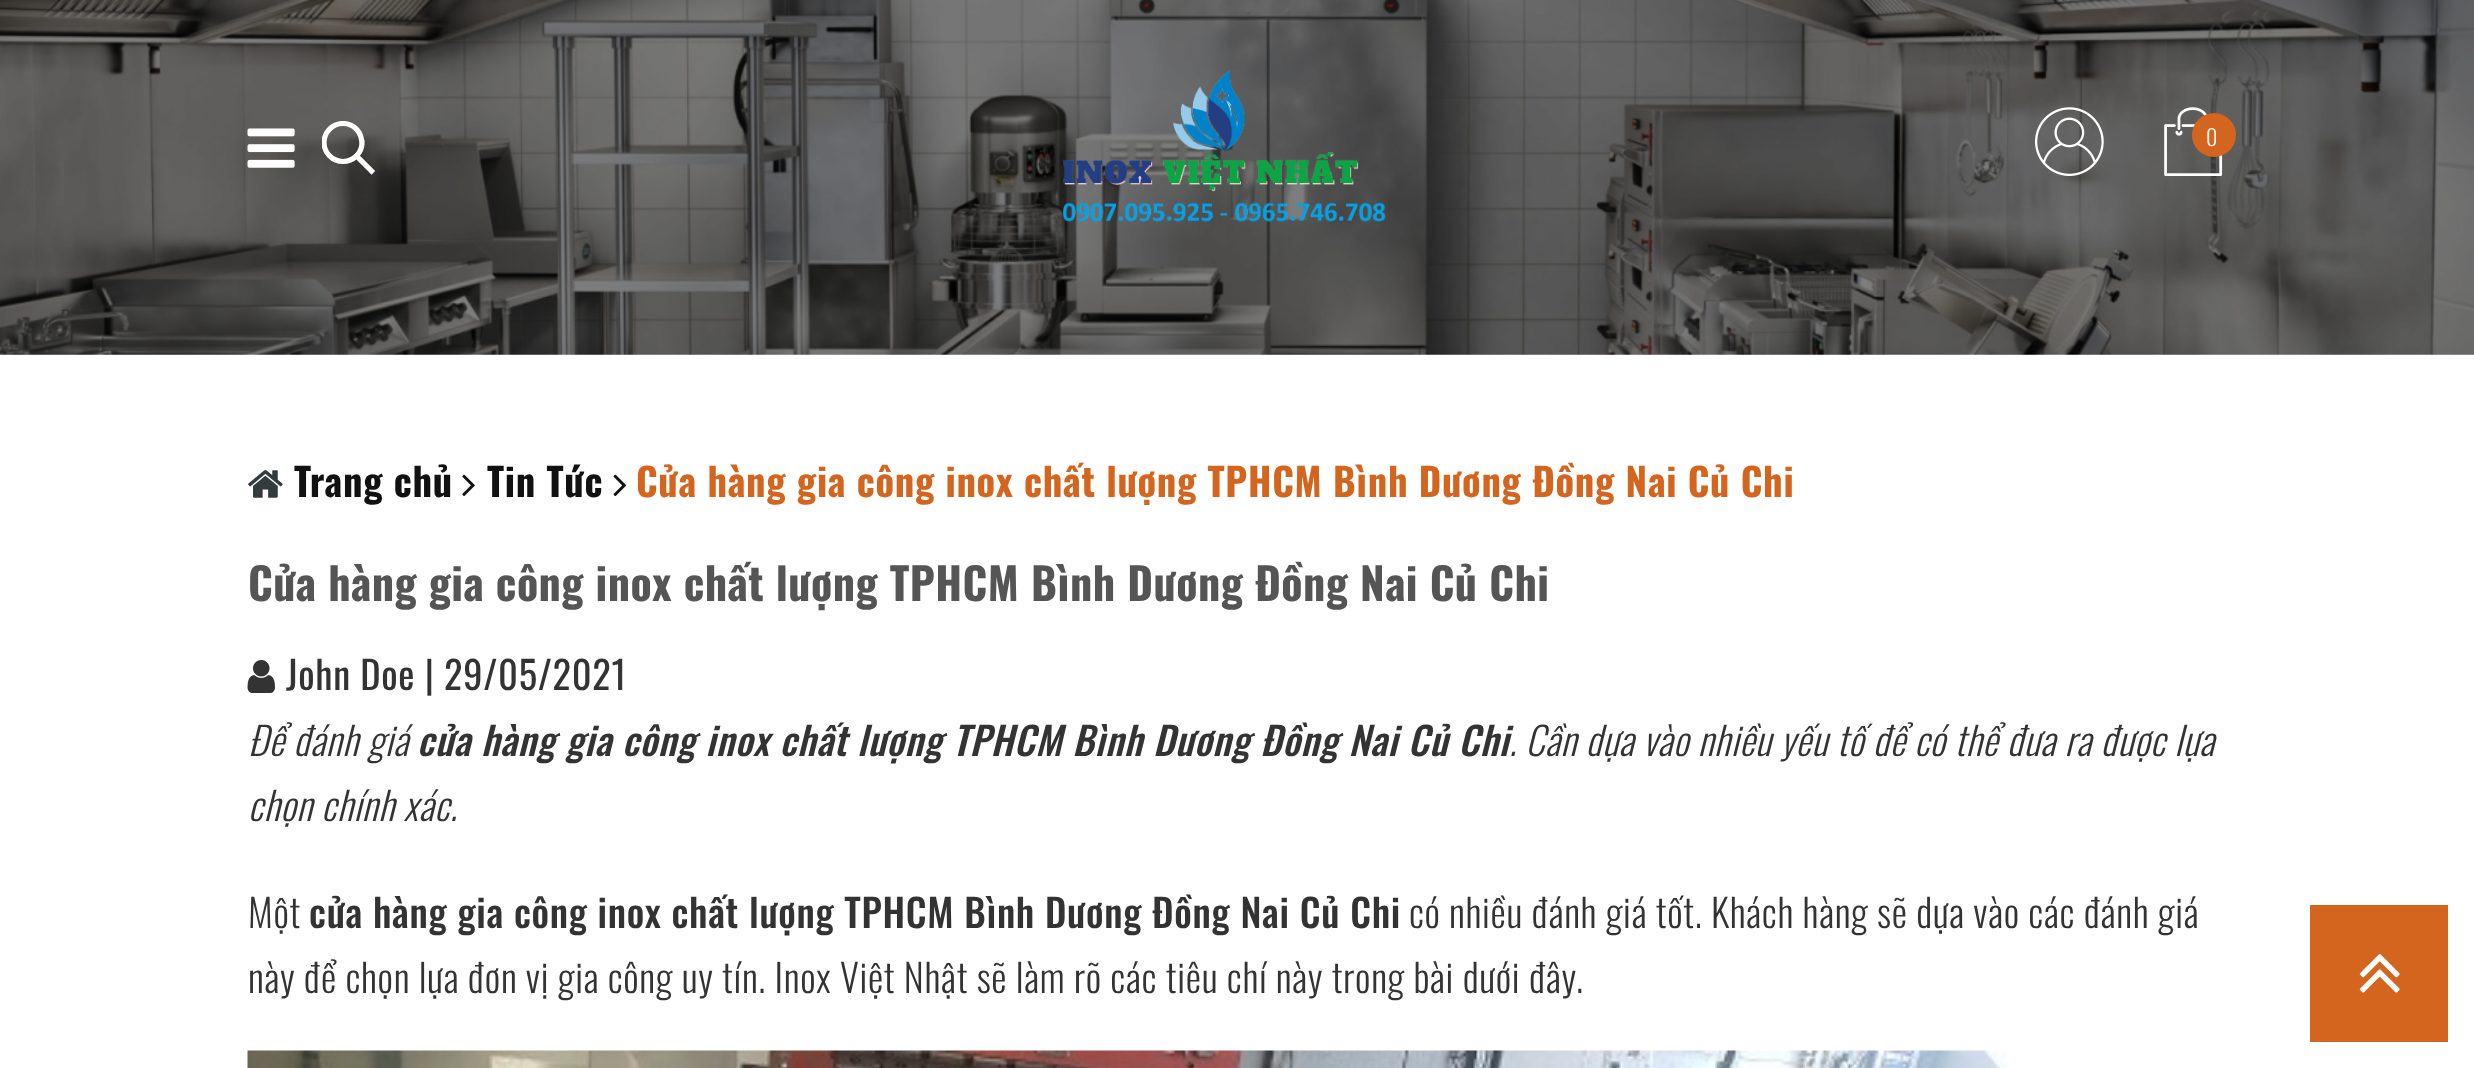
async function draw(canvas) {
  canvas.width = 2474
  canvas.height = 1068
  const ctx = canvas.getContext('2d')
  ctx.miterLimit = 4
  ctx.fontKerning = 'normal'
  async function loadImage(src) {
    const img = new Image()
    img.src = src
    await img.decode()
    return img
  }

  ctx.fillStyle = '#fff'
  ctx.fillRect(0, 0, 2474, 1068)
  ctx.drawImage(await loadImage('image0.png'), 0, 0, 2474, 355)
  ctx.drawImage(await loadImage('image1.png'), 247, 128, 48, 40)
  ctx.beginPath()
  ctx.moveTo(371.5, 171)
  ctx.lineTo(356.5, 156)
  ctx.strokeStyle = '#fff'
  ctx.lineWidth = 5.2
  ctx.lineCap = 'square'
  ctx.stroke()
  ctx.save()
  ctx.beginPath()
  ctx.rect(322, 121, 55, 55)
  ctx.clip()
  ctx.beginPath()
  ctx.arc(343, 142.5, 19, 0, 2 * Math.PI)
  ctx.stroke()
  ctx.restore()
  ctx.drawImage(await loadImage('image2.png'), 1063, 69, 323, 153)
  ctx.drawImage(await loadImage('image3.png'), 2035, 107, 69, 69)
  ctx.drawImage(await loadImage('image4.png'), 2164, 107, 59, 69)
  ctx.fillStyle = '#d4651f'
  ctx.beginPath()
  ctx.arc(2214, 135, 22, 0, 2 * Math.PI)
  ctx.fill()
  ctx.letterSpacing = '0.69px'
  ctx.font = '300 22px Oswald'
  ctx.fillStyle = '#fff'
  ctx.fillText('0', 2206, 146)
  ctx.drawImage(await loadImage('image5.png'), 248, 470, 35, 28)
  ctx.font = 'bold 38.5px Oswald'
  ctx.fillStyle = '#111'
  ctx.fillText('Trang chủ', 294, 497)
  ctx.drawImage(await loadImage('image6.png'), 462, 474, 13, 22)
  ctx.fillText('Tin Tức', 487, 497)
  ctx.drawImage(await loadImage('image7.png'), 613, 474, 13, 22)
  ctx.fillStyle = '#d4651f'
  ctx.fillText('Cửa hàng gia công inox chất lượng TPHCM Bình Dương Đồng Nai Củ Chi', 636, 497)
  ctx.letterSpacing = '0.45px'
  ctx.font = 'bold 44px Oswald'
  ctx.fillStyle = '#555'
  ctx.fillText('Cửa hàng gia công inox chất lượng TPHCM Bình Dương Đồng Nai Củ Chi', 248, 601)
  ctx.drawImage(await loadImage('image8.png'), 247, 660, 28, 33)
  ctx.letterSpacing = '0.69px'
  ctx.font = '38.5px Oswald'
  ctx.fillStyle = '#333'
  ctx.fillText('John Doe | 29/05/2021', 286, 690)
  ctx.font = 'italic 300 38.5px Oswald'
  ctx.fillText('Để đánh giá', 248, 756)
  ctx.font = 'italic 500 38.5px Oswald'
  ctx.fillText('cửa hàng gia công inox chất lượng TPHCM Bình Dương Đồng Nai Củ Chi', 417, 756)
  ctx.font = 'italic 300 38.5px Oswald'
  ctx.fillText('. Cần dựa vào nhiều yếu tố để có thể đưa ra được lựa', 1509, 756)
  ctx.fillText('chọn chính xác.', 248, 821)
  ctx.font = '300 38.5px Oswald'
  ctx.fillText('Một', 248, 928)
  ctx.font = '500 38.5px Oswald'
  ctx.fillText('cửa hàng gia công inox chất lượng TPHCM Bình Dương Đồng Nai Củ Chi', 309, 928)
  ctx.font = '300 38.5px Oswald'
  ctx.fillText('có nhiều đánh giá tốt. Khách hàng sẽ dựa vào các đánh giá', 1409, 928)
  ctx.fillText('này để chọn lựa đơn vị gia công uy tín. Inox Việt Nhật sẽ làm rõ các tiêu chí này trong bài dưới đây.', 248, 993)
  ctx.drawImage(await loadImage('image9.png'), 247, 1050, 1761, 18)
  ctx.fillStyle = '#d4651f'
  ctx.fillRect(2310, 905, 138, 137)
  ctx.drawImage(await loadImage('image10.png'), 2359, 954, 41, 39)
}

draw(document.querySelector('canvas'))
